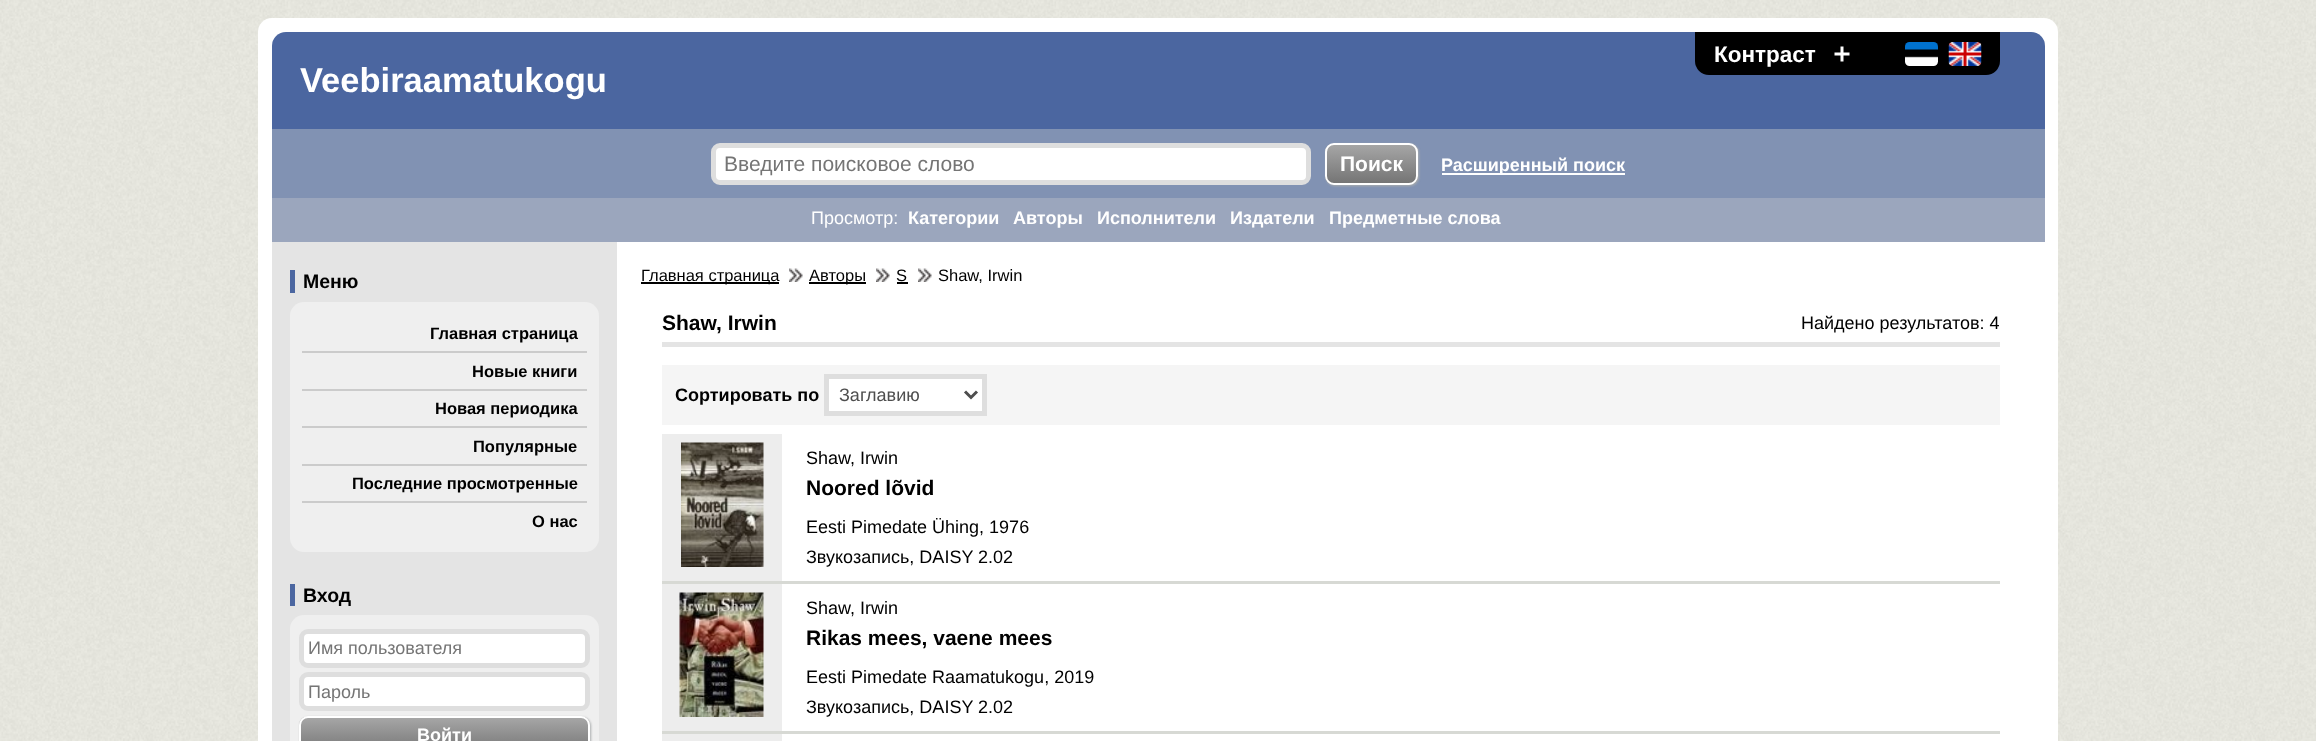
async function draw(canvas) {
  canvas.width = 2316
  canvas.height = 741
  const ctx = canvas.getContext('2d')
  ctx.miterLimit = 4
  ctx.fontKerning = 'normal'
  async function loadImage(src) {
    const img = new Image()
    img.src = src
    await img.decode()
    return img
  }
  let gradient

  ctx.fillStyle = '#fff'
  ctx.fillRect(0, 0, 2316, 741)
  ctx.drawImage(await loadImage('image0.png'), 0, 0, 2316, 18)
  ctx.drawImage(await loadImage('image1.png'), 0, 18, 2316, 723)
  ctx.beginPath()
  ctx.roundRect(258, 18, 1800, 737, 14)
  ctx.fill()
  ctx.fillStyle = '#4b66a0'
  ctx.beginPath()
  ctx.roundRect(272, 32, 1773, 97, [14, 14, 0, 0])
  ctx.fill()
  ctx.fillStyle = '#000'
  ctx.beginPath()
  ctx.roundRect(1695, 32, 305, 43, [0, 0, 14, 14])
  ctx.fill()
  ctx.font = 'bold 22.5px Liberation Sans'
  ctx.fillStyle = '#fff'
  ctx.fillText('Контраст', 1714, 62)
  ctx.drawImage(await loadImage('image2.png'), 1834, 46, 16, 16)
  ctx.drawImage(await loadImage('image3.png'), 1905, 42, 33, 24)
  ctx.drawImage(await loadImage('image4.png'), 1948, 42, 34, 24)
  ctx.font = 'bold 34.5px Liberation Sans'
  ctx.fillText('Veebiraamatukogu', 300, 92)
  ctx.fillStyle = '#8192b3'
  ctx.fillRect(272, 129, 1773, 69)
  ctx.fillStyle = '#fff'
  ctx.beginPath()
  ctx.roundRect(713.5, 145.5, 595, 37, 6.5)
  ctx.fill()
  ctx.strokeStyle = '#dedede'
  ctx.lineWidth = 5
  ctx.stroke()
  ctx.font = '21px Liberation Sans'
  ctx.fillStyle = '#757575'
  ctx.fillText('Введите поисковое слово', 724, 171)
  ctx.fillStyle = '#aaadae'
  ctx.filter = 'blur(1px)'
  ctx.beginPath()
  ctx.roundRect(1326, 144, 93, 42, 9)
  ctx.fill()
  ctx.filter = 'none'
  ctx.save()
  ctx.beginPath()
  ctx.roundRect(1325, 143, 93, 42, 9)
  ctx.clip()
  gradient = ctx.createLinearGradient(1371, 144, 1371, 183)
  gradient.addColorStop(0, '#a7a7a7')
  gradient.addColorStop(1, '#757575')
  ctx.fillStyle = gradient
  ctx.fillRect(1325, 144, 93, 39)
  ctx.restore()
  ctx.beginPath()
  ctx.roundRect(1326, 144, 91, 40, 8)
  ctx.strokeStyle = '#fff'
  ctx.lineWidth = 2
  ctx.stroke()
  ctx.font = 'bold 21px Liberation Sans'
  ctx.fillStyle = '#fff'
  ctx.fillText('Поиск', 1340, 171)
  ctx.fillRect(1442, 173, 183, 2)
  ctx.font = 'bold 18px Liberation Sans'
  ctx.fillText('Расширенный поиск', 1441, 171)
  ctx.fillStyle = '#9ba6bd'
  ctx.fillRect(272, 198, 1773, 44)
  ctx.font = '18px Liberation Sans'
  ctx.fillStyle = '#fff'
  ctx.fillText('Просмотр:', 811, 224)
  ctx.font = 'bold 18px Liberation Sans'
  ctx.fillText('Категории', 908, 224)
  ctx.fillText('Авторы', 1013, 224)
  ctx.fillText('Исполнители', 1097, 224)
  ctx.fillText('Издатели', 1230, 224)
  ctx.fillText('Предметные слова', 1329, 224)
  ctx.fillStyle = '#e4e4e4'
  ctx.fillRect(272, 242, 345, 499)
  ctx.fillStyle = '#4b66a0'
  ctx.fillRect(290, 270, 5, 23)
  ctx.font = 'bold 19.5px Liberation Sans'
  ctx.fillStyle = '#000'
  ctx.fillText('Меню', 303, 288)
  ctx.fillStyle = '#efefef'
  ctx.beginPath()
  ctx.roundRect(290, 302, 309, 250, 14)
  ctx.fill()
  ctx.fillStyle = '#cbcbcb'
  ctx.fillRect(302, 351, 285, 2)
  ctx.font = 'bold 16.5px Liberation Sans'
  ctx.fillStyle = '#000'
  ctx.fillText('Главная страница', 430, 339)
  ctx.fillStyle = '#cbcbcb'
  ctx.fillRect(302, 389, 285, 2)
  ctx.fillStyle = '#000'
  ctx.fillText('Новые книги', 472, 377)
  ctx.fillStyle = '#cbcbcb'
  ctx.fillRect(302, 426, 285, 2)
  ctx.fillStyle = '#000'
  ctx.fillText('Новая периодика', 435, 414)
  ctx.fillStyle = '#cbcbcb'
  ctx.fillRect(302, 464, 285, 2)
  ctx.fillStyle = '#000'
  ctx.fillText('Популярные', 473, 452)
  ctx.fillStyle = '#cbcbcb'
  ctx.fillRect(302, 501, 285, 2)
  ctx.fillStyle = '#000'
  ctx.fillText('Последние просмотренные', 352, 489)
  ctx.fillText('О нас', 532, 527)
  ctx.fillRect(641, 282, 138, 2)
  ctx.font = '16.5px Liberation Sans'
  ctx.fillText('Главная страница', 641, 281)
  ctx.drawImage(await loadImage('image5.png'), 789, 268, 14, 14)
  ctx.fillRect(809, 282, 57, 2)
  ctx.fillText('Авторы', 809, 281)
  ctx.drawImage(await loadImage('image5.png'), 876, 268, 14, 14)
  ctx.fillText('S', 896, 281)
  ctx.fillRect(897, 282, 11, 2)
  ctx.drawImage(await loadImage('image5.png'), 918, 268, 14, 14)
  ctx.fillText('Shaw, Irwin', 938, 281)
  ctx.fillStyle = '#e4e4e4'
  ctx.fillRect(662, 342, 1338, 5)
  ctx.font = 'bold 21px Liberation Sans'
  ctx.fillStyle = '#000'
  ctx.fillText('Shaw, Irwin', 662, 330)
  ctx.font = '18px Liberation Sans'
  ctx.fillText('Найдено результатов: 4', 1801, 329)
  ctx.fillStyle = '#f5f5f5'
  ctx.fillRect(662, 365, 1338, 60)
  ctx.font = 'bold 18px Liberation Sans'
  ctx.fillStyle = '#000'
  ctx.fillText('Cортировать по', 675, 401)
  ctx.fillStyle = '#fff'
  ctx.beginPath()
  ctx.rect(826.5, 376.5, 158, 37)
  ctx.fill()
  ctx.strokeStyle = '#dedede'
  ctx.lineWidth = 5
  ctx.stroke()
  ctx.beginPath()
  ctx.moveTo(965, 391.5)
  ctx.lineTo(971, 397.5)
  ctx.lineTo(977, 391.5)
  ctx.strokeStyle = '#4e4e4e'
  ctx.lineWidth = 3
  ctx.stroke()
  ctx.font = '18px Liberation Sans'
  ctx.fillStyle = '#4e4e4e'
  ctx.fillText('Заглавию', 839, 401)
  ctx.fillStyle = '#ededed'
  ctx.fillRect(662, 434, 120, 147)
  ctx.fillStyle = '#d7d9d4'
  ctx.fillRect(662, 581, 1338, 3)
  ctx.drawImage(await loadImage('image6.png'), 681, 442, 83, 125)
  ctx.fillStyle = '#000'
  ctx.fillText('Shaw, Irwin', 806, 464)
  ctx.font = 'bold 21px Liberation Sans'
  ctx.fillText('Noored lõvid', 806, 495)
  ctx.font = '18px Liberation Sans'
  ctx.fillText('Eesti Pimedate Ühing, 1976', 806, 533)
  ctx.fillText('Звукозапись, DAISY 2.02', 806, 563)
  ctx.fillStyle = '#ededed'
  ctx.fillRect(662, 584, 120, 147)
  ctx.fillStyle = '#d7d9d4'
  ctx.fillRect(662, 731, 1338, 3)
  ctx.drawImage(await loadImage('image7.png'), 679, 592, 85, 125)
  ctx.fillStyle = '#000'
  ctx.fillText('Shaw, Irwin', 806, 614)
  ctx.font = 'bold 21px Liberation Sans'
  ctx.fillText('Rikas mees, vaene mees', 806, 645)
  ctx.font = '18px Liberation Sans'
  ctx.fillText('Eesti Pimedate Raamatukogu, 2019', 806, 683)
  ctx.fillText('Звукозапись, DAISY 2.02', 806, 713)
  ctx.fillStyle = '#ededed'
  ctx.fillRect(662, 734, 120, 7)
  ctx.fillStyle = '#4b66a0'
  ctx.fillRect(290, 584, 5, 22)
  ctx.font = 'bold 19.5px Liberation Sans'
  ctx.fillStyle = '#000'
  ctx.fillText('Вход', 303, 602)
  ctx.fillStyle = '#efefef'
  ctx.beginPath()
  ctx.roundRect(290, 615, 309, 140, 14)
  ctx.fill()
  ctx.fillStyle = '#fff'
  ctx.beginPath()
  ctx.roundRect(301.5, 631.5, 286, 34, 6.5)
  ctx.fill()
  ctx.strokeStyle = '#dedede'
  ctx.lineWidth = 5
  ctx.stroke()
  ctx.font = '18px Liberation Sans'
  ctx.fillStyle = '#757575'
  ctx.fillText('Имя пользователя', 308, 654)
  ctx.fillStyle = '#fff'
  ctx.beginPath()
  ctx.roundRect(301.5, 674.5, 286, 34, 6.5)
  ctx.fill()
  ctx.stroke()
  ctx.fillStyle = '#757575'
  ctx.fillText('Пароль', 308, 698)
  ctx.fillStyle = '#aaadae'
  ctx.filter = 'blur(1px)'
  ctx.beginPath()
  ctx.roundRect(300, 717, 291, 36, 9)
  ctx.fill()
  ctx.filter = 'none'
  ctx.save()
  ctx.beginPath()
  ctx.roundRect(299, 716, 291, 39, 9)
  ctx.clip()
  gradient = ctx.createLinearGradient(444, 717, 444, 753)
  gradient.addColorStop(0, '#a7a7a7')
  gradient.addColorStop(1, '#757575')
  ctx.fillStyle = gradient
  ctx.fillRect(299, 717, 291, 24)
  ctx.restore()
  ctx.beginPath()
  ctx.roundRect(300, 717, 289, 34, 8)
  ctx.strokeStyle = '#fff'
  ctx.lineWidth = 2
  ctx.stroke()
  ctx.font = 'bold 18px Liberation Sans'
  ctx.fillStyle = '#fff'
  ctx.fillText('Войти', 417, 741)
}

draw(document.querySelector('canvas'))
